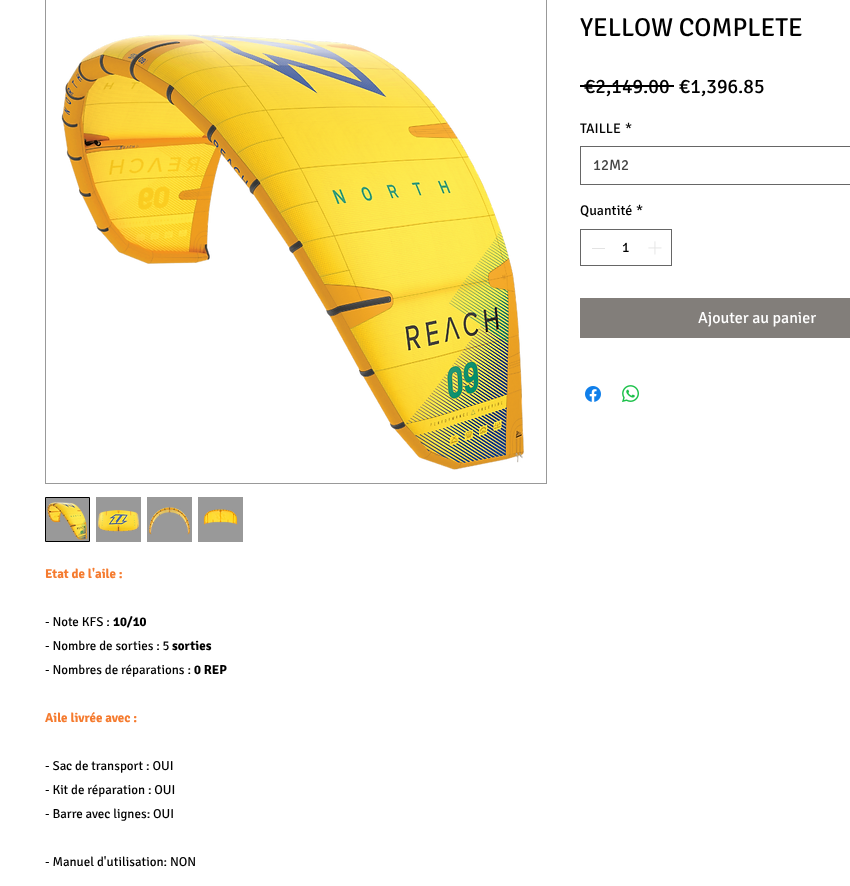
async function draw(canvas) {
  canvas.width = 850
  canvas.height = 886
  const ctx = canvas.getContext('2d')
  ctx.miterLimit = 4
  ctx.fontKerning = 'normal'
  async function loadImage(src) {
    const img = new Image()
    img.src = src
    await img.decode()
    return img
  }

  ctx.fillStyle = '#fff'
  ctx.fillRect(0, 0, 850, 886)
  ctx.font = '26px Signika'
  ctx.fillStyle = '#000'
  ctx.fillText('YELLOW COMPLETE', 580, 36)
  ctx.font = '20px Signika'
  ctx.fillText('€2,149.00', 584, 93)
  ctx.fillRect(580, 85, 94, 2)
  ctx.fillText('€1,396.85', 679, 93)
  ctx.font = '14px Signika'
  ctx.fillText('TAILLE', 580, 133)
  ctx.fillText('*', 625, 133)
  ctx.strokeStyle = '#666'
  ctx.strokeRect(580.5, 146.5, 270, 38)
  ctx.font = '15px Signika'
  ctx.fillStyle = '#444'
  ctx.fillText('12M2', 593, 170)
  ctx.font = '14px Signika'
  ctx.fillStyle = '#000'
  ctx.fillText('Quantité', 580, 215)
  ctx.fillText('*', 636, 215)
  ctx.strokeRect(580.5, 229.5, 91, 36)
  ctx.fillStyle = '#e3e3e3'
  ctx.fillRect(592, 248, 13, 1)
  ctx.fillStyle = '#000'
  ctx.fillText('1', 622, 252)
  ctx.drawImage(await loadImage('image0.png'), 648, 241, 14, 14)
  ctx.fillStyle = '#827e7a'
  ctx.fillRect(580, 298, 270, 40)
  ctx.font = '16px Signika'
  ctx.fillStyle = '#fff'
  ctx.fillText('Ajouter au panier', 698, 323)
  ctx.drawImage(await loadImage('image1.png'), 585, 386, 16, 16)
  ctx.drawImage(await loadImage('image2.png'), 622, 385, 17, 17)
  ctx.strokeStyle = '#999'
  ctx.strokeRect(45.5, -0.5, 501, 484)
  ctx.drawImage(await loadImage('image3.png'), 61, 34, 463, 436)
  ctx.fillStyle = '#999'
  ctx.beginPath()
  ctx.rect(45.5, 497.5, 44, 44)
  ctx.fill()
  ctx.strokeStyle = '#000'
  ctx.stroke()
  ctx.drawImage(await loadImage('image4.png'), 47, 502, 41, 38)
  ctx.fillRect(96, 497, 45, 45)
  ctx.drawImage(await loadImage('image5.png'), 98, 510, 42, 22)
  ctx.fillRect(147, 497, 45, 45)
  ctx.drawImage(await loadImage('image6.png'), 149, 507, 41, 28)
  ctx.fillRect(198, 497, 45, 45)
  ctx.drawImage(await loadImage('image7.png'), 203, 509, 35, 16)
  ctx.font = 'bold 13px Signika'
  ctx.fillStyle = '#f57b2f'
  ctx.fillText('Etat de l\'aile :', 45, 578)
  ctx.font = '13px Signika'
  ctx.fillStyle = '#000'
  ctx.fillText('- Note KFS :', 45, 626)
  ctx.font = 'bold 13px Signika'
  ctx.fillText('10/10', 113, 626)
  ctx.font = '13px Signika'
  ctx.fillText('- Nombre de sorties : 5', 45, 650)
  ctx.font = 'bold 13px Signika'
  ctx.fillText('sorties', 172, 650)
  ctx.font = '13px Signika'
  ctx.fillText('- Nombres de réparations :', 45, 674)
  ctx.font = 'bold 13px Signika'
  ctx.fillText('0 REP', 194, 674)
  ctx.fillStyle = '#f57b2f'
  ctx.fillText('Aile livrée avec :', 45, 722)
  ctx.font = '13px Signika'
  ctx.fillStyle = '#000'
  ctx.fillText('- Sac de transport : OUI', 45, 770)
  ctx.fillText('- Kit de réparation : OUI', 45, 794)
  ctx.fillText('- Barre avec lignes: OUI', 45, 818)
  ctx.fillText('- Manuel d\'utilisation: NON', 45, 866)
}

draw(document.querySelector('canvas'))
